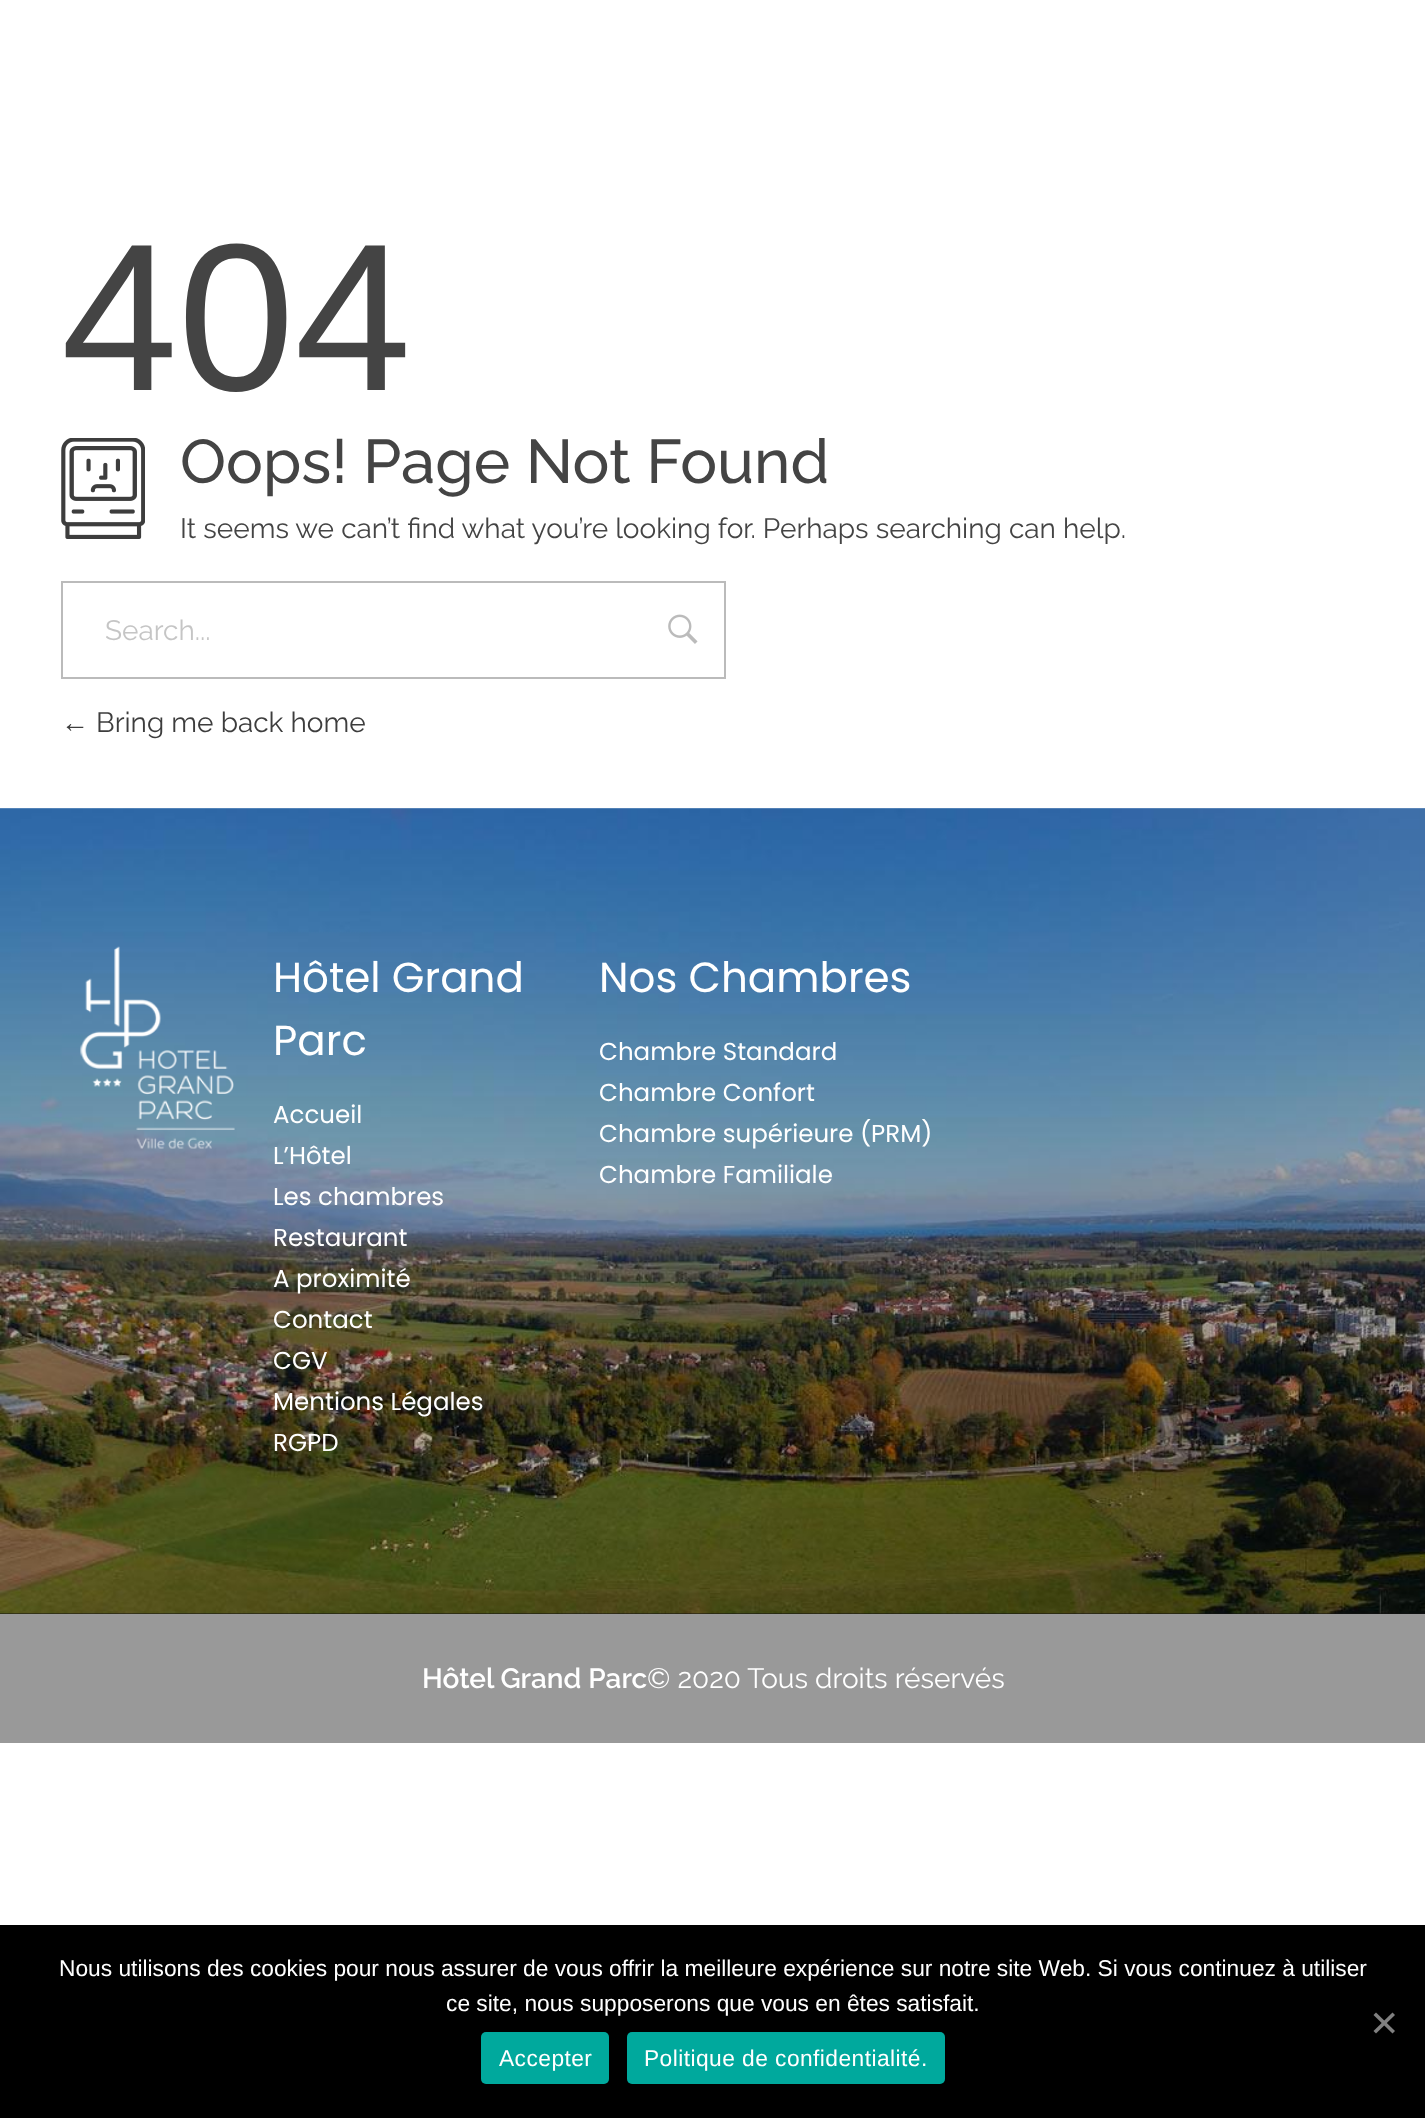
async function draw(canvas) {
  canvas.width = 1425
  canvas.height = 2118
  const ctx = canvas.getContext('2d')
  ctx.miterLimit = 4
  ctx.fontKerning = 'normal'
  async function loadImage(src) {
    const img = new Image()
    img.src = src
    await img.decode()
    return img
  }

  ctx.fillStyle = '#fff'
  ctx.fillRect(0, 0, 1425, 2118)
  ctx.font = '210px Liberation Sans'
  ctx.fillStyle = '#444'
  ctx.fillText('404', 61, 390)
  ctx.drawImage(await loadImage('image0.png'), 61, 438, 84, 101)
  ctx.font = '500 61.6px Raleway'
  ctx.fillText('Oops! Page Not Found', 180, 483)
  ctx.font = '28px Raleway'
  ctx.fillText('It seems we can’t find what you’re looking for. Perhaps searching can help.', 180, 538)
  ctx.strokeStyle = '#bbb'
  ctx.lineWidth = 2
  ctx.strokeRect(62, 582, 663, 96)
  ctx.fillStyle = '#c5c5c5'
  ctx.fillText('Search...', 105, 640)
  ctx.drawImage(await loadImage('image1.png'), 668, 614, 30, 30)
  ctx.font = '28px Liberation Sans'
  ctx.fillStyle = '#3d3d3d'
  ctx.fillText('←', 61, 732)
  ctx.font = '28px Raleway'
  ctx.fillText('Bring me back home', 96, 732)
  ctx.drawImage(await loadImage('image2.png'), 0, 808, 1425, 1)
  ctx.drawImage(await loadImage('image3.png'), 0, 808, 1425, 1)
  ctx.fillStyle = '#131313'
  ctx.fillRect(0, 1613, 1425, 1)
  ctx.drawImage(await loadImage('image4.png'), 0, 808, 1425, 806)
  ctx.drawImage(await loadImage('image5.png'), 80, 946, 155, 203)
  ctx.font = '42px Poppins'
  ctx.fillStyle = '#fff'
  ctx.fillText('Hôtel Grand', 273, 992)
  ctx.fillText('Parc', 273, 1055)
  ctx.font = '24.5px Poppins'
  ctx.fillText('Accueil', 273, 1123)
  ctx.fillText('L’Hôtel', 273, 1164)
  ctx.fillText('Les chambres', 273, 1205)
  ctx.fillText('Restaurant', 273, 1246)
  ctx.fillText('A proximité', 273, 1287)
  ctx.fillText('Contact', 273, 1328)
  ctx.fillText('CGV', 273, 1369)
  ctx.fillText('Mentions Légales', 273, 1410)
  ctx.fillText('RGPD', 273, 1451)
  ctx.font = '42px Poppins'
  ctx.fillText('Nos Chambres', 599, 992)
  ctx.font = '24.5px Poppins'
  ctx.fillText('Chambre Standard', 599, 1060)
  ctx.fillText('Chambre Confort', 599, 1101)
  ctx.fillText('Chambre supérieure (PRM)', 599, 1142)
  ctx.fillText('Chambre Familiale', 599, 1183)
  ctx.fillStyle = '#999'
  ctx.fillRect(0, 1614, 1425, 129)
  ctx.font = '600 28px Raleway'
  ctx.fillStyle = '#fff'
  ctx.fillText('Hôtel Grand Parc', 422, 1688)
  ctx.font = '28px Raleway'
  ctx.fillText('© 2020 Tous droits réservés', 647, 1688)
  ctx.fillStyle = '#000'
  ctx.fillRect(0, 1925, 1425, 193)
  ctx.font = '22.75px Liberation Sans'
  ctx.fillStyle = '#fff'
  ctx.fillText('Nous utilisons des cookies pour nous assurer de vous offrir la meilleure expérience sur notre site Web. Si vous continuez à utiliser', 59, 1976)
  ctx.fillText('ce site, nous supposerons que vous en êtes satisfait.', 446, 2011)
  ctx.fillStyle = '#808080'
  ctx.beginPath()
  ctx.moveTo(1392.5, 2012.5)
  ctx.lineTo(1395, 2015)
  ctx.lineTo(1376, 2033.5)
  ctx.lineTo(1373.5, 2031)
  ctx.closePath()
  ctx.fill()
  ctx.beginPath()
  ctx.moveTo(1373.5, 2015)
  ctx.lineTo(1376, 2012.5)
  ctx.lineTo(1395, 2031)
  ctx.lineTo(1392.5, 2033.5)
  ctx.closePath()
  ctx.fill()
  ctx.fillStyle = '#00a99d'
  ctx.beginPath()
  ctx.roundRect(481, 2032, 128, 52, 5)
  ctx.fill()
  ctx.letterSpacing = '0.45px'
  ctx.fillStyle = '#fff'
  ctx.fillText('Accepter', 499, 2066)
  ctx.fillStyle = '#00a99d'
  ctx.beginPath()
  ctx.roundRect(627, 2032, 318, 52, 5)
  ctx.fill()
  ctx.fillStyle = '#fff'
  ctx.fillText('Politique de confidentialité.', 644, 2066)
}

draw(document.querySelector('canvas'))
